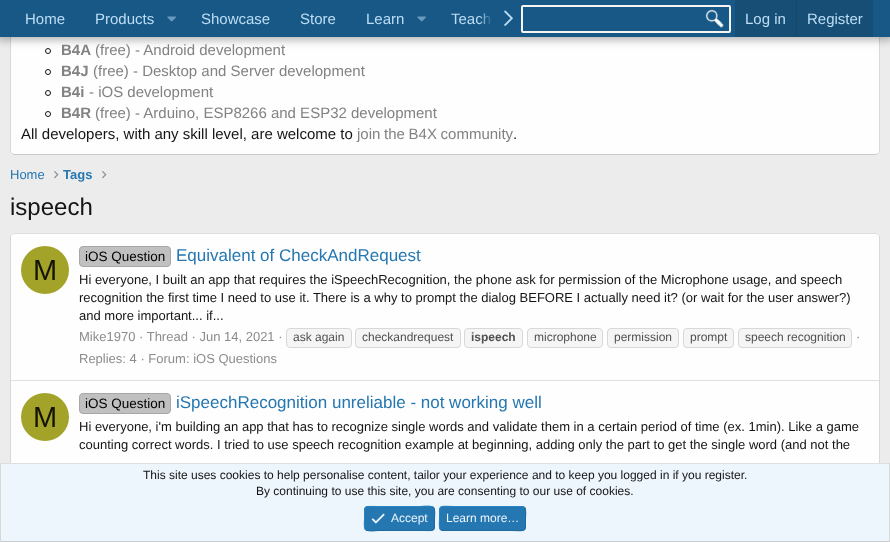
async function draw(canvas) {
  canvas.width = 890
  canvas.height = 542
  const ctx = canvas.getContext('2d')
  ctx.miterLimit = 4
  ctx.fontKerning = 'normal'
  async function loadImage(src) {
    const img = new Image()
    img.src = src
    await img.decode()
    return img
  }
  let gradient

  ctx.fillStyle = '#ececec'
  ctx.fillRect(0, 0, 890, 542)
  ctx.fillStyle = '#fefefe'
  ctx.beginPath()
  ctx.roundRect(10, -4, 870, 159, 4)
  ctx.fill()
  ctx.beginPath()
  ctx.moveTo(878.5, -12.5)
  ctx.bezierCurveTo(879, -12, 879.5, -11, 879.5, -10)
  ctx.lineTo(879.5, 151)
  ctx.bezierCurveTo(879.5, 152, 879, 153, 878.5, 153.5)
  ctx.strokeStyle = '#d8d8d8'
  ctx.stroke()
  ctx.beginPath()
  ctx.moveTo(878.5, 153.5)
  ctx.lineTo(876, 154.5)
  ctx.lineTo(14, 154.5)
  ctx.lineTo(11.5, 153.5)
  ctx.strokeStyle = '#cbcbcb'
  ctx.stroke()
  ctx.beginPath()
  ctx.moveTo(11.5, 153.5)
  ctx.bezierCurveTo(11, 153, 10.5, 152, 10.5, 151)
  ctx.lineTo(10.5, -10)
  ctx.bezierCurveTo(10.5, -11, 11, -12, 11.5, -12.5)
  ctx.strokeStyle = '#d8d8d8'
  ctx.stroke()
  ctx.beginPath()
  ctx.arc(48, 51, 2.5, 0, 2 * Math.PI)
  ctx.strokeStyle = '#141414'
  ctx.stroke()
  ctx.fillStyle = '#0000004d'
  ctx.filter = 'blur(4px)'
  ctx.beginPath()
  ctx.rect(-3, -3, 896, 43)
  ctx.fill()
  ctx.filter = 'none'
  ctx.fillStyle = '#185886'
  ctx.fillRect(0, 0, 890, 37)
  ctx.font = '15px Liberation Sans'
  ctx.fillStyle = '#bcdef5'
  ctx.fillText('Home', 25, 24)
  ctx.fillText('Products', 95, 24)
  ctx.drawImage(await loadImage('image0.png'), 167, 16, 9, 6)
  ctx.fillText('Showcase', 201, 24)
  ctx.fillText('Store', 300, 24)
  ctx.fillText('Learn', 366, 24)
  ctx.drawImage(await loadImage('image0.png'), 417, 16, 9, 6)
  ctx.fillText('Teach', 451, 24)
  gradient = ctx.createLinearGradient(479, 19, 519, 19)
  gradient.addColorStop(0, '#18588600')
  gradient.addColorStop(0.33, '#185886')
  ctx.fillStyle = gradient
  ctx.fillRect(479, 13, 12, 11)
  ctx.drawImage(await loadImage('image1.png'), 504, 10, 9, 16)
  ctx.drawImage(await loadImage('image2.png'), 705, 9, 19, 19)
  ctx.beginPath()
  ctx.roundRect(522, 6, 208, 26, 1)
  ctx.strokeStyle = '#f5f5f5'
  ctx.lineWidth = 2
  ctx.stroke()
  ctx.fillStyle = '#174e75'
  ctx.fillRect(735, 0, 138, 37)
  ctx.fillStyle = '#bcdef5'
  ctx.fillText('Log in', 745, 24)
  ctx.fillStyle = '#174566'
  ctx.fillRect(796, 0, 1, 37)
  ctx.fillStyle = '#bcdef5'
  ctx.fillText('Register', 807, 24)
  ctx.font = 'bold 15px Liberation Sans'
  ctx.fillStyle = '#828282'
  ctx.fillText('B4A', 61, 55)
  ctx.font = '15px Liberation Sans'
  ctx.fillText('(free) - Android development', 95, 55)
  ctx.beginPath()
  ctx.arc(48, 72, 2.5, 0, 2 * Math.PI)
  ctx.strokeStyle = '#141414'
  ctx.lineWidth = 1
  ctx.stroke()
  ctx.font = 'bold 15px Liberation Sans'
  ctx.fillText('B4J', 61, 76)
  ctx.font = '15px Liberation Sans'
  ctx.fillText('(free) - Desktop and Server development', 93, 76)
  ctx.beginPath()
  ctx.arc(48, 93, 2.5, 0, 2 * Math.PI)
  ctx.stroke()
  ctx.font = 'bold 15px Liberation Sans'
  ctx.fillText('B4i', 61, 97)
  ctx.font = '15px Liberation Sans'
  ctx.fillText('- iOS development', 89, 97)
  ctx.beginPath()
  ctx.arc(48, 114, 2.5, 0, 2 * Math.PI)
  ctx.stroke()
  ctx.font = 'bold 15px Liberation Sans'
  ctx.fillText('B4R', 61, 118)
  ctx.font = '15px Liberation Sans'
  ctx.fillText('(free) - Arduino, ESP8266 and ESP32 development', 95, 118)
  ctx.fillStyle = '#141414'
  ctx.fillText('All developers, with any skill level, are welcome to', 21, 139)
  ctx.wordSpacing = '-0.5px'
  ctx.fillStyle = '#828282'
  ctx.fillText('join the B4X community', 357, 139)
  ctx.wordSpacing = '0px'
  ctx.fillStyle = '#141414'
  ctx.fillText('.', 513, 139)
  ctx.font = '13px Liberation Sans'
  ctx.fillStyle = '#2577b1'
  ctx.fillText('Home', 10, 179)
  ctx.drawImage(await loadImage('image3.png'), 54, 171, 5, 8)
  ctx.font = 'bold 13px Liberation Sans'
  ctx.fillText('Tags', 63, 179)
  ctx.drawImage(await loadImage('image3.png'), 102, 171, 5, 8)
  ctx.font = '24px Liberation Sans'
  ctx.fillStyle = '#141414'
  ctx.fillText('ispeech', 10, 215)
  ctx.fillStyle = '#fefefe'
  ctx.beginPath()
  ctx.roundRect(10, 233, 870, 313, 4)
  ctx.fill()
  ctx.beginPath()
  ctx.moveTo(11.5, 234.5)
  ctx.lineTo(14, 233.5)
  ctx.lineTo(876, 233.5)
  ctx.lineTo(878.5, 234.5)
  ctx.strokeStyle = '#dfdfdf'
  ctx.stroke()
  ctx.beginPath()
  ctx.moveTo(878.5, 234.5)
  ctx.bezierCurveTo(879, 235, 879.5, 236, 879.5, 237)
  ctx.lineTo(879.5, 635)
  ctx.bezierCurveTo(879.5, 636, 879, 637, 878.5, 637.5)
  ctx.strokeStyle = '#d8d8d8'
  ctx.stroke()
  ctx.beginPath()
  ctx.moveTo(11.5, 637.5)
  ctx.bezierCurveTo(11, 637, 10.5, 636, 10.5, 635)
  ctx.lineTo(10.5, 237)
  ctx.bezierCurveTo(10.5, 236, 11, 235, 11.5, 234.5)
  ctx.stroke()
  ctx.fillStyle = '#a3a329'
  ctx.beginPath()
  ctx.arc(45, 270, 24, 0, 2 * Math.PI)
  ctx.fill()
  ctx.font = '29px Liberation Sans'
  ctx.fillStyle = '#141405'
  ctx.fillText('M', 33, 280)
  ctx.fillStyle = '#c0c0c0'
  ctx.beginPath()
  ctx.roundRect(79.5, 246.5, 91, 20, 3.5)
  ctx.fill()
  ctx.strokeStyle = '#a7a7a7'
  ctx.stroke()
  ctx.font = '13.5px Liberation Sans'
  ctx.fillStyle = '#000'
  ctx.fillText('iOS Question', 85, 261)
  ctx.font = '17px Liberation Sans'
  ctx.fillStyle = '#2577b1'
  ctx.fillText('Equivalent of CheckAndRequest', 176, 261)
  ctx.font = '13px Liberation Sans'
  ctx.fillStyle = '#141414'
  ctx.fillText('Hi everyone, I built an app that requires the iSpeechRecognition, the phone ask for permission of the Microphone usage, and speech', 79, 284)
  ctx.fillText('recognition the first time I need to use it. There is a why to prompt the dialog BEFORE I actually need it? (or wait for the user answer?)', 79, 302)
  ctx.fillText('and more important... if...', 79, 320)
  ctx.fillStyle = '#8c8c8c'
  ctx.fillText('Mike1970 · Thread · Jun 14, 2021 ·', 79, 341)
  ctx.fillStyle = '#f5f5f5'
  ctx.beginPath()
  ctx.roundRect(286.5, 328.5, 65, 19, 3.5)
  ctx.fill()
  ctx.strokeStyle = '#d8d8d8'
  ctx.stroke()
  ctx.font = '12px Liberation Sans'
  ctx.fillStyle = '#505050'
  ctx.fillText('ask again', 293, 341)
  ctx.fillStyle = '#f5f5f5'
  ctx.beginPath()
  ctx.roundRect(355.5, 328.5, 105, 19, 3.5)
  ctx.fill()
  ctx.stroke()
  ctx.fillStyle = '#505050'
  ctx.fillText('checkandrequest', 362, 341)
  ctx.fillStyle = '#f5f5f5'
  ctx.beginPath()
  ctx.roundRect(464.5, 328.5, 58, 19, 3.5)
  ctx.fill()
  ctx.stroke()
  ctx.font = 'bold 12px Liberation Sans'
  ctx.fillStyle = '#505050'
  ctx.fillText('ispeech', 471, 341)
  ctx.fillStyle = '#f5f5f5'
  ctx.beginPath()
  ctx.roundRect(527.5, 328.5, 75, 19, 3.5)
  ctx.fill()
  ctx.stroke()
  ctx.font = '12px Liberation Sans'
  ctx.fillStyle = '#505050'
  ctx.fillText('microphone', 534, 341)
  ctx.fillStyle = '#f5f5f5'
  ctx.beginPath()
  ctx.roundRect(607.5, 328.5, 71, 19, 3.5)
  ctx.fill()
  ctx.stroke()
  ctx.fillStyle = '#505050'
  ctx.fillText('permission', 614, 341)
  ctx.fillStyle = '#f5f5f5'
  ctx.beginPath()
  ctx.roundRect(683.5, 328.5, 50, 19, 3.5)
  ctx.fill()
  ctx.stroke()
  ctx.fillStyle = '#505050'
  ctx.fillText('prompt', 690, 341)
  ctx.fillStyle = '#f5f5f5'
  ctx.beginPath()
  ctx.roundRect(738.5, 328.5, 113, 19, 3.5)
  ctx.fill()
  ctx.stroke()
  ctx.fillStyle = '#505050'
  ctx.fillText('speech recognition', 745, 341)
  ctx.font = '13px Liberation Sans'
  ctx.fillStyle = '#8c8c8c'
  ctx.fillText('·', 856, 341)
  ctx.fillText('Replies: 4 · Forum: iOS Questions', 79, 363)
  ctx.fillStyle = '#dfdfdf'
  ctx.fillRect(11, 380, 868, 1)
  ctx.fillStyle = '#a3a329'
  ctx.beginPath()
  ctx.arc(45, 417, 24, 0, 2 * Math.PI)
  ctx.fill()
  ctx.font = '29px Liberation Sans'
  ctx.fillStyle = '#141405'
  ctx.fillText('M', 33, 427)
  ctx.fillStyle = '#c0c0c0'
  ctx.beginPath()
  ctx.roundRect(79.5, 393.5, 91, 20, 3.5)
  ctx.fill()
  ctx.strokeStyle = '#a7a7a7'
  ctx.stroke()
  ctx.font = '13.5px Liberation Sans'
  ctx.fillStyle = '#000'
  ctx.fillText('iOS Question', 85, 408)
  ctx.font = '17px Liberation Sans'
  ctx.fillStyle = '#2577b1'
  ctx.fillText('iSpeechRecognition unreliable - not working well', 176, 408)
  ctx.font = '13px Liberation Sans'
  ctx.fillStyle = '#141414'
  ctx.fillText('Hi everyone, i\'m building an app that has to recognize single words and validate them in a certain period of time (ex. 1min). Like a game', 79, 431)
  ctx.fillText('counting correct words. I tried to use speech recognition example at beginning, adding only the part to get the single word (and not the', 79, 449)
  ctx.fillStyle = '#edf6fd'
  ctx.fillRect(1, 464, 888, 77)
  ctx.fillStyle = '#dfdfdf'
  ctx.fillRect(0, 463, 890, 1)
  ctx.fillStyle = '#d8d8d8'
  ctx.fillRect(889, 463, 1, 79)
  ctx.fillStyle = '#cbcbcb'
  ctx.fillRect(0, 541, 890, 1)
  ctx.fillStyle = '#d8d8d8'
  ctx.fillRect(0, 463, 1, 79)
  ctx.font = '12px Liberation Sans'
  ctx.fillStyle = '#141414'
  ctx.fillText('This site uses cookies to help personalise content, tailor your experience and to keep you logged in if you register.', 143, 479)
  ctx.fillText('By continuing to use this site, you are consenting to our use of cookies.', 256, 495)
  ctx.fillStyle = '#2577b1'
  ctx.beginPath()
  ctx.roundRect(364, 506, 71, 25, 4)
  ctx.fill()
  ctx.beginPath()
  ctx.moveTo(433.5, 507.5)
  ctx.bezierCurveTo(435.5, 510, 434.5, 516, 434.5, 518.5)
  ctx.bezierCurveTo(434.5, 532.5, 435.5, 530.5, 420.5, 530.5)
  ctx.lineTo(378.5, 530.5)
  ctx.bezierCurveTo(377.5, 530.5, 368, 532, 365.5, 529.5)
  ctx.strokeStyle = '#21699c'
  ctx.stroke()
  ctx.beginPath()
  ctx.moveTo(365.5, 529.5)
  ctx.bezierCurveTo(363.5, 527, 364.5, 521, 364.5, 518.5)
  ctx.bezierCurveTo(364.5, 504.5, 363.5, 506.5, 378.5, 506.5)
  ctx.lineTo(420.5, 506.5)
  ctx.bezierCurveTo(421.5, 506.5, 431, 505, 433.5, 507.5)
  ctx.strokeStyle = '#2985c6'
  ctx.stroke()
  ctx.drawImage(await loadImage('image4.png'), 371, 513, 14, 11)
  ctx.fillStyle = '#edf6fd'
  ctx.fillText('Accept', 391, 522)
  ctx.fillStyle = '#2577b1'
  ctx.beginPath()
  ctx.roundRect(439, 506, 87, 25, 4)
  ctx.fill()
  ctx.beginPath()
  ctx.moveTo(524.5, 507.5)
  ctx.bezierCurveTo(526.5, 510, 525.5, 516, 525.5, 518.5)
  ctx.bezierCurveTo(525.5, 533.5, 526, 530.5, 509, 530.5)
  ctx.lineTo(443, 530.5)
  ctx.lineTo(440.5, 529.5)
  ctx.strokeStyle = '#21699c'
  ctx.stroke()
  ctx.beginPath()
  ctx.moveTo(440.5, 529.5)
  ctx.bezierCurveTo(438.5, 527, 439.5, 521, 439.5, 518.5)
  ctx.bezierCurveTo(439.5, 503.5, 439, 506.5, 456, 506.5)
  ctx.lineTo(522, 506.5)
  ctx.lineTo(524.5, 507.5)
  ctx.strokeStyle = '#2985c6'
  ctx.stroke()
  ctx.fillStyle = '#edf6fd'
  ctx.fillText('Learn more…', 446, 522)
}

draw(document.querySelector('canvas'))
